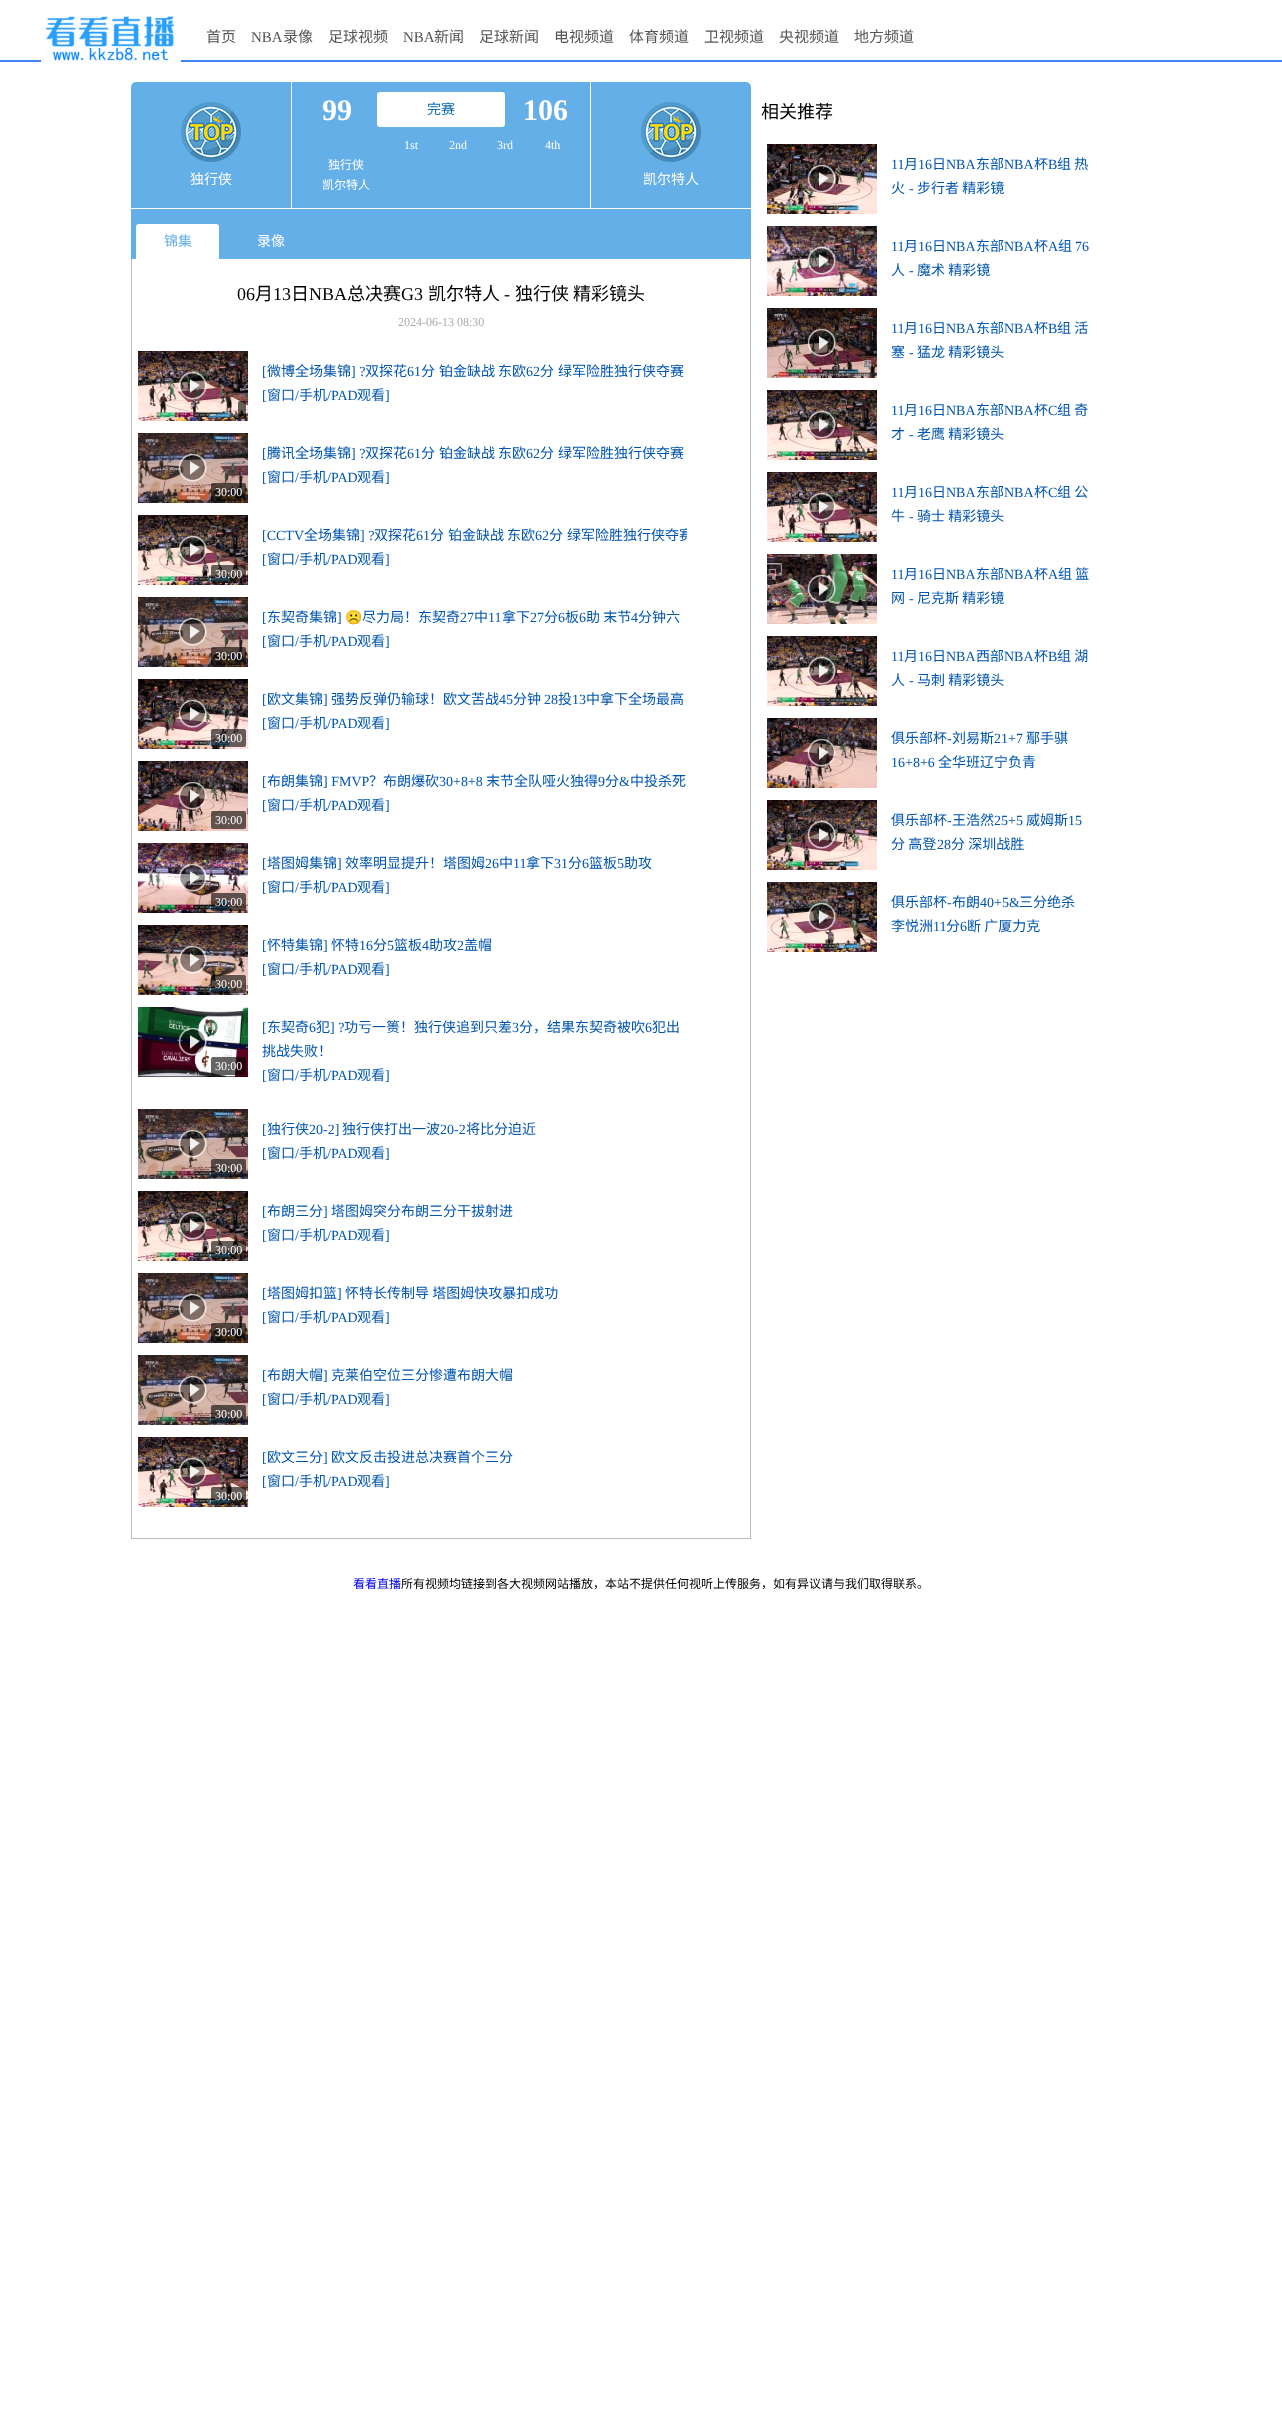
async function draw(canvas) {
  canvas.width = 1282
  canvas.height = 2411
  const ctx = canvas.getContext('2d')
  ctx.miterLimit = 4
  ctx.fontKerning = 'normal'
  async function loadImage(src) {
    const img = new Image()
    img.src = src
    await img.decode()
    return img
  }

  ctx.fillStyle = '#fff'
  ctx.fillRect(0, 0, 1282, 2411)
  ctx.fillStyle = '#4184f3'
  ctx.fillRect(0, 60, 1282, 2)
  ctx.drawImage(await loadImage('image0.png'), 41, 15, 140, 47)
  ctx.font = '15px Noto Sans CJK SC'
  ctx.fillStyle = '#555'
  ctx.fillText('首页', 206, 42)
  ctx.font = '15px Liberation Serif'
  ctx.fillText('NBA', 251, 42)
  ctx.font = '15px Noto Sans CJK SC'
  ctx.fillText('录像', 283, 42)
  ctx.fillText('足球视频', 328, 42)
  ctx.font = '15px Liberation Serif'
  ctx.fillText('NBA', 403, 42)
  ctx.font = '15px Noto Sans CJK SC'
  ctx.fillText('新闻', 434, 42)
  ctx.fillText('足球新闻', 479, 42)
  ctx.fillText('电视频道', 554, 42)
  ctx.fillText('体育频道', 629, 42)
  ctx.fillText('卫视频道', 704, 42)
  ctx.fillText('央视频道', 779, 42)
  ctx.fillText('地方频道', 854, 42)
  ctx.fillStyle = '#65afe8'
  ctx.beginPath()
  ctx.roundRect(131, 82, 620, 132, [5, 5, 0, 0])
  ctx.fill()
  ctx.drawImage(await loadImage('image1.png'), 181, 102, 60, 60)
  ctx.font = '14px Noto Sans CJK SC'
  ctx.fillStyle = '#fff'
  ctx.fillText('独行侠', 190, 184)
  ctx.fillRect(590, 82, 1, 126)
  ctx.fillRect(291, 82, 1, 126)
  ctx.font = 'bold 30px Liberation Serif'
  ctx.fillText('99', 322, 120)
  ctx.beginPath()
  ctx.roundRect(377, 92, 128, 35, 3)
  ctx.fill()
  ctx.font = '14px Noto Sans CJK SC'
  ctx.fillStyle = '#0b6cb0'
  ctx.fillText('完赛', 427, 114)
  ctx.font = 'bold 30px Liberation Serif'
  ctx.fillStyle = '#fff'
  ctx.fillText('106', 523, 120)
  ctx.font = '12px Liberation Serif'
  ctx.fillText('1st', 404, 149)
  ctx.fillText('2nd', 449, 149)
  ctx.fillText('3rd', 497, 149)
  ctx.fillText('4th', 545, 149)
  ctx.font = '12px Noto Sans CJK SC'
  ctx.fillText('独行侠', 328, 169)
  ctx.fillText('凯尔特人', 322, 189)
  ctx.drawImage(await loadImage('image1.png'), 641, 102, 60, 60)
  ctx.font = '14px Noto Sans CJK SC'
  ctx.fillText('凯尔特人', 643, 184)
  ctx.fillRect(131, 208, 620, 1)
  ctx.fillStyle = '#64afe8'
  ctx.fillRect(131, 214, 620, 45)
  ctx.fillStyle = '#fff'
  ctx.beginPath()
  ctx.roundRect(136, 224, 83, 35, [3, 3, 0, 0])
  ctx.fill()
  ctx.fillStyle = '#64afe8'
  ctx.fillText('锦集', 164, 246)
  ctx.fillStyle = '#fff'
  ctx.fillText('录像', 257, 246)
  ctx.fillStyle = '#bcbcbc'
  ctx.fillRect(750, 259, 1, 1280)
  ctx.fillRect(131, 1538, 620, 1)
  ctx.fillRect(131, 259, 1, 1280)
  ctx.font = '18px Liberation Serif'
  ctx.fillStyle = '#000'
  ctx.fillText('06', 237, 300)
  ctx.font = '18px Noto Sans CJK SC'
  ctx.fillText('月', 255, 300)
  ctx.font = '18px Liberation Serif'
  ctx.fillText('13', 273, 300)
  ctx.font = '18px Noto Sans CJK SC'
  ctx.fillText('日', 291, 300)
  ctx.font = '18px Liberation Serif'
  ctx.fillText('NBA', 309, 300)
  ctx.font = '18px Noto Sans CJK SC'
  ctx.fillText('总决赛', 347, 300)
  ctx.font = '18px Liberation Serif'
  ctx.fillText('G3', 401, 300)
  ctx.font = '18px Noto Sans CJK SC'
  ctx.fillText('凯尔特人', 428, 300)
  ctx.font = '18px Liberation Serif'
  ctx.fillText('-', 504, 300)
  ctx.font = '18px Noto Sans CJK SC'
  ctx.fillText('独行侠 精彩镜头', 515, 300)
  ctx.font = '12px Liberation Serif'
  ctx.fillStyle = '#aaa'
  ctx.fillText('2024-06-13 08:30', 398, 326)
  ctx.drawImage(await loadImage('image2.png'), 138, 351, 110, 70)
  ctx.drawImage(await loadImage('image3.png'), 178, 371, 29, 29)
  ctx.fillStyle = '#00000099'
  ctx.beginPath()
  ctx.roundRect(238, 401, 8, 18, 2)
  ctx.fill()
  ctx.font = '14px Liberation Serif'
  ctx.fillStyle = '#0055af'
  ctx.fillText('[', 262, 376)
  ctx.font = '14px Noto Sans CJK SC'
  ctx.fillText('微博全场集锦', 267, 376)
  ctx.font = '14px Liberation Serif'
  ctx.fillText('] ?', 351, 376)
  ctx.font = '14px Noto Sans CJK SC'
  ctx.fillText('双探花', 365, 376)
  ctx.font = '14px Liberation Serif'
  ctx.fillText('61', 407, 376)
  ctx.font = '14px Noto Sans CJK SC'
  ctx.fillText('分', 421, 376)
  ctx.fillText('铂金缺战', 439, 376)
  ctx.fillText('东欧', 498, 376)
  ctx.font = '14px Liberation Serif'
  ctx.fillText('62', 526, 376)
  ctx.font = '14px Noto Sans CJK SC'
  ctx.fillText('分', 540, 376)
  ctx.fillText('绿军险胜独行侠夺赛', 558, 376)
  ctx.font = '14px Liberation Serif'
  ctx.fillText('[', 262, 400)
  ctx.font = '14px Noto Sans CJK SC'
  ctx.fillText('窗口', 267, 400)
  ctx.font = '14px Liberation Serif'
  ctx.fillText('/', 295, 400)
  ctx.font = '14px Noto Sans CJK SC'
  ctx.fillText('手机', 299, 400)
  ctx.font = '14px Liberation Serif'
  ctx.fillText('/PAD', 327, 400)
  ctx.font = '14px Noto Sans CJK SC'
  ctx.fillText('观看', 357, 400)
  ctx.font = '14px Liberation Serif'
  ctx.fillText(']', 385, 400)
  ctx.fillText('[', 262, 458)
  ctx.font = '14px Noto Sans CJK SC'
  ctx.fillText('腾讯全场集锦', 267, 458)
  ctx.font = '14px Liberation Serif'
  ctx.fillText('] ?', 351, 458)
  ctx.font = '14px Noto Sans CJK SC'
  ctx.fillText('双探花', 365, 458)
  ctx.font = '14px Liberation Serif'
  ctx.fillText('61', 407, 458)
  ctx.font = '14px Noto Sans CJK SC'
  ctx.fillText('分', 421, 458)
  ctx.fillText('铂金缺战', 439, 458)
  ctx.fillText('东欧', 498, 458)
  ctx.font = '14px Liberation Serif'
  ctx.fillText('62', 526, 458)
  ctx.font = '14px Noto Sans CJK SC'
  ctx.fillText('分', 540, 458)
  ctx.fillText('绿军险胜独行侠夺赛', 558, 458)
  ctx.font = '14px Liberation Serif'
  ctx.fillText('[', 262, 482)
  ctx.font = '14px Noto Sans CJK SC'
  ctx.fillText('窗口', 267, 482)
  ctx.font = '14px Liberation Serif'
  ctx.fillText('/', 295, 482)
  ctx.font = '14px Noto Sans CJK SC'
  ctx.fillText('手机', 299, 482)
  ctx.font = '14px Liberation Serif'
  ctx.fillText('/PAD', 327, 482)
  ctx.font = '14px Noto Sans CJK SC'
  ctx.fillText('观看', 357, 482)
  ctx.font = '14px Liberation Serif'
  ctx.fillText(']', 385, 482)
  ctx.drawImage(await loadImage('image4.png'), 138, 433, 110, 70)
  ctx.drawImage(await loadImage('image5.png'), 178, 453, 29, 29)
  ctx.fillStyle = '#00000099'
  ctx.beginPath()
  ctx.roundRect(211, 483, 35, 18, 2)
  ctx.fill()
  ctx.font = '12px Liberation Serif'
  ctx.fillStyle = '#fff'
  ctx.fillText('30:00', 215, 496)
  ctx.font = '14px Liberation Serif'
  ctx.fillStyle = '#0055af'
  ctx.fillText('[CCTV', 262, 540)
  ctx.font = '14px Noto Sans CJK SC'
  ctx.fillText('全场集锦', 304, 540)
  ctx.font = '14px Liberation Serif'
  ctx.fillText('] ?', 360, 540)
  ctx.font = '14px Noto Sans CJK SC'
  ctx.fillText('双探花', 374, 540)
  ctx.font = '14px Liberation Serif'
  ctx.fillText('61', 416, 540)
  ctx.font = '14px Noto Sans CJK SC'
  ctx.fillText('分', 430, 540)
  ctx.fillText('铂金缺战', 448, 540)
  ctx.fillText('东欧', 507, 540)
  ctx.font = '14px Liberation Serif'
  ctx.fillText('62', 535, 540)
  ctx.font = '14px Noto Sans CJK SC'
  ctx.fillText('分', 549, 540)
  ctx.save()
  ctx.beginPath()
  ctx.rect(137, 514, 550, 72)
  ctx.clip()
  ctx.fillText('绿军险胜独行侠夺赛', 567, 540)
  ctx.restore()
  ctx.font = '14px Liberation Serif'
  ctx.fillText('[', 262, 564)
  ctx.font = '14px Noto Sans CJK SC'
  ctx.fillText('窗口', 267, 564)
  ctx.font = '14px Liberation Serif'
  ctx.fillText('/', 295, 564)
  ctx.font = '14px Noto Sans CJK SC'
  ctx.fillText('手机', 299, 564)
  ctx.font = '14px Liberation Serif'
  ctx.fillText('/PAD', 327, 564)
  ctx.font = '14px Noto Sans CJK SC'
  ctx.fillText('观看', 357, 564)
  ctx.font = '14px Liberation Serif'
  ctx.fillText(']', 385, 564)
  ctx.drawImage(await loadImage('image6.png'), 138, 515, 110, 70)
  ctx.drawImage(await loadImage('image7.png'), 178, 535, 29, 29)
  ctx.fillStyle = '#00000099'
  ctx.beginPath()
  ctx.roundRect(211, 565, 35, 18, 2)
  ctx.fill()
  ctx.font = '12px Liberation Serif'
  ctx.fillStyle = '#fff'
  ctx.fillText('30:00', 215, 578)
  ctx.font = '14px Liberation Serif'
  ctx.fillStyle = '#0055af'
  ctx.fillText('[', 262, 622)
  ctx.font = '14px Noto Sans CJK SC'
  ctx.fillText('东契奇集锦', 267, 622)
  ctx.font = '14px Liberation Serif'
  ctx.fillText(']', 337, 622)
  ctx.font = '14px Noto Color Emoji'
  ctx.fillText('☹️', 345, 622)
  ctx.font = '14px Noto Sans CJK SC'
  ctx.fillText('尽力局！东契奇', 362, 622)
  ctx.font = '14px Liberation Serif'
  ctx.fillText('27', 460, 622)
  ctx.font = '14px Noto Sans CJK SC'
  ctx.fillText('中', 474, 622)
  ctx.font = '14px Liberation Serif'
  ctx.fillText('11', 488, 622)
  ctx.font = '14px Noto Sans CJK SC'
  ctx.fillText('拿下', 502, 622)
  ctx.font = '14px Liberation Serif'
  ctx.fillText('27', 530, 622)
  ctx.font = '14px Noto Sans CJK SC'
  ctx.fillText('分', 544, 622)
  ctx.font = '14px Liberation Serif'
  ctx.fillText('6', 558, 622)
  ctx.font = '14px Noto Sans CJK SC'
  ctx.fillText('板', 565, 622)
  ctx.font = '14px Liberation Serif'
  ctx.fillText('6', 579, 622)
  ctx.font = '14px Noto Sans CJK SC'
  ctx.fillText('助 末节', 586, 622)
  ctx.font = '14px Liberation Serif'
  ctx.fillText('4', 631, 622)
  ctx.font = '14px Noto Sans CJK SC'
  ctx.fillText('分钟六', 638, 622)
  ctx.font = '14px Liberation Serif'
  ctx.fillText('[', 262, 646)
  ctx.font = '14px Noto Sans CJK SC'
  ctx.fillText('窗口', 267, 646)
  ctx.font = '14px Liberation Serif'
  ctx.fillText('/', 295, 646)
  ctx.font = '14px Noto Sans CJK SC'
  ctx.fillText('手机', 299, 646)
  ctx.font = '14px Liberation Serif'
  ctx.fillText('/PAD', 327, 646)
  ctx.font = '14px Noto Sans CJK SC'
  ctx.fillText('观看', 357, 646)
  ctx.font = '14px Liberation Serif'
  ctx.fillText(']', 385, 646)
  ctx.drawImage(await loadImage('image4.png'), 138, 597, 110, 70)
  ctx.drawImage(await loadImage('image5.png'), 178, 617, 29, 29)
  ctx.fillStyle = '#00000099'
  ctx.beginPath()
  ctx.roundRect(211, 647, 35, 18, 2)
  ctx.fill()
  ctx.font = '12px Liberation Serif'
  ctx.fillStyle = '#fff'
  ctx.fillText('30:00', 215, 660)
  ctx.font = '14px Liberation Serif'
  ctx.fillStyle = '#0055af'
  ctx.fillText('[', 262, 704)
  ctx.font = '14px Noto Sans CJK SC'
  ctx.fillText('欧文集锦', 267, 704)
  ctx.font = '14px Liberation Serif'
  ctx.fillText(']', 323, 704)
  ctx.font = '14px Noto Sans CJK SC'
  ctx.fillText('强势反弹仍输球！欧文苦战', 331, 704)
  ctx.font = '14px Liberation Serif'
  ctx.fillText('45', 499, 704)
  ctx.font = '14px Noto Sans CJK SC'
  ctx.fillText('分钟', 513, 704)
  ctx.font = '14px Liberation Serif'
  ctx.fillText('28', 544, 704)
  ctx.font = '14px Noto Sans CJK SC'
  ctx.fillText('投', 558, 704)
  ctx.font = '14px Liberation Serif'
  ctx.fillText('13', 572, 704)
  ctx.font = '14px Noto Sans CJK SC'
  ctx.fillText('中拿下全场最高', 586, 704)
  ctx.font = '14px Liberation Serif'
  ctx.fillText('[', 262, 728)
  ctx.font = '14px Noto Sans CJK SC'
  ctx.fillText('窗口', 267, 728)
  ctx.font = '14px Liberation Serif'
  ctx.fillText('/', 295, 728)
  ctx.font = '14px Noto Sans CJK SC'
  ctx.fillText('手机', 299, 728)
  ctx.font = '14px Liberation Serif'
  ctx.fillText('/PAD', 327, 728)
  ctx.font = '14px Noto Sans CJK SC'
  ctx.fillText('观看', 357, 728)
  ctx.font = '14px Liberation Serif'
  ctx.fillText(']', 385, 728)
  ctx.drawImage(await loadImage('image8.png'), 138, 679, 110, 70)
  ctx.drawImage(await loadImage('image9.png'), 178, 699, 29, 29)
  ctx.fillStyle = '#00000099'
  ctx.beginPath()
  ctx.roundRect(211, 729, 35, 18, 2)
  ctx.fill()
  ctx.font = '12px Liberation Serif'
  ctx.fillStyle = '#fff'
  ctx.fillText('30:00', 215, 742)
  ctx.font = '14px Liberation Serif'
  ctx.fillStyle = '#0055af'
  ctx.fillText('[', 262, 786)
  ctx.font = '14px Noto Sans CJK SC'
  ctx.fillText('布朗集锦', 267, 786)
  ctx.font = '14px Liberation Serif'
  ctx.fillText('] FMVP', 323, 786)
  ctx.font = '14px Noto Sans CJK SC'
  ctx.fillText('？布朗爆砍', 369, 786)
  ctx.font = '14px Liberation Serif'
  ctx.fillText('30+8+8', 439, 786)
  ctx.font = '14px Noto Sans CJK SC'
  ctx.fillText('末节全队哑火独得', 486, 786)
  ctx.font = '14px Liberation Serif'
  ctx.fillText('9', 598, 786)
  ctx.font = '14px Noto Sans CJK SC'
  ctx.fillText('分', 605, 786)
  ctx.font = '14px Liberation Serif'
  ctx.fillText('&', 619, 786)
  ctx.font = '14px Noto Sans CJK SC'
  ctx.fillText('中投杀死', 630, 786)
  ctx.font = '14px Liberation Serif'
  ctx.fillText('[', 262, 810)
  ctx.font = '14px Noto Sans CJK SC'
  ctx.fillText('窗口', 267, 810)
  ctx.font = '14px Liberation Serif'
  ctx.fillText('/', 295, 810)
  ctx.font = '14px Noto Sans CJK SC'
  ctx.fillText('手机', 299, 810)
  ctx.font = '14px Liberation Serif'
  ctx.fillText('/PAD', 327, 810)
  ctx.font = '14px Noto Sans CJK SC'
  ctx.fillText('观看', 357, 810)
  ctx.font = '14px Liberation Serif'
  ctx.fillText(']', 385, 810)
  ctx.drawImage(await loadImage('image10.png'), 138, 761, 110, 70)
  ctx.drawImage(await loadImage('image11.png'), 178, 781, 29, 29)
  ctx.fillStyle = '#00000099'
  ctx.beginPath()
  ctx.roundRect(211, 811, 35, 18, 2)
  ctx.fill()
  ctx.font = '12px Liberation Serif'
  ctx.fillStyle = '#fff'
  ctx.fillText('30:00', 215, 824)
  ctx.font = '14px Liberation Serif'
  ctx.fillStyle = '#0055af'
  ctx.fillText('[', 262, 868)
  ctx.font = '14px Noto Sans CJK SC'
  ctx.fillText('塔图姆集锦', 267, 868)
  ctx.font = '14px Liberation Serif'
  ctx.fillText(']', 337, 868)
  ctx.font = '14px Noto Sans CJK SC'
  ctx.fillText('效率明显提升！塔图姆', 345, 868)
  ctx.font = '14px Liberation Serif'
  ctx.fillText('26', 485, 868)
  ctx.font = '14px Noto Sans CJK SC'
  ctx.fillText('中', 499, 868)
  ctx.font = '14px Liberation Serif'
  ctx.fillText('11', 513, 868)
  ctx.font = '14px Noto Sans CJK SC'
  ctx.fillText('拿下', 526, 868)
  ctx.font = '14px Liberation Serif'
  ctx.fillText('31', 554, 868)
  ctx.font = '14px Noto Sans CJK SC'
  ctx.fillText('分', 568, 868)
  ctx.font = '14px Liberation Serif'
  ctx.fillText('6', 582, 868)
  ctx.font = '14px Noto Sans CJK SC'
  ctx.fillText('篮板', 589, 868)
  ctx.font = '14px Liberation Serif'
  ctx.fillText('5', 617, 868)
  ctx.font = '14px Noto Sans CJK SC'
  ctx.fillText('助攻', 624, 868)
  ctx.font = '14px Liberation Serif'
  ctx.fillText('[', 262, 892)
  ctx.font = '14px Noto Sans CJK SC'
  ctx.fillText('窗口', 267, 892)
  ctx.font = '14px Liberation Serif'
  ctx.fillText('/', 295, 892)
  ctx.font = '14px Noto Sans CJK SC'
  ctx.fillText('手机', 299, 892)
  ctx.font = '14px Liberation Serif'
  ctx.fillText('/PAD', 327, 892)
  ctx.font = '14px Noto Sans CJK SC'
  ctx.fillText('观看', 357, 892)
  ctx.font = '14px Liberation Serif'
  ctx.fillText(']', 385, 892)
  ctx.drawImage(await loadImage('image12.png'), 138, 843, 110, 70)
  ctx.drawImage(await loadImage('image13.png'), 179, 863, 28, 29)
  ctx.fillStyle = '#00000099'
  ctx.beginPath()
  ctx.roundRect(211, 893, 35, 18, 2)
  ctx.fill()
  ctx.font = '12px Liberation Serif'
  ctx.fillStyle = '#fff'
  ctx.fillText('30:00', 215, 906)
  ctx.font = '14px Liberation Serif'
  ctx.fillStyle = '#0055af'
  ctx.fillText('[', 262, 950)
  ctx.font = '14px Noto Sans CJK SC'
  ctx.fillText('怀特集锦', 267, 950)
  ctx.font = '14px Liberation Serif'
  ctx.fillText(']', 323, 950)
  ctx.font = '14px Noto Sans CJK SC'
  ctx.fillText('怀特', 331, 950)
  ctx.font = '14px Liberation Serif'
  ctx.fillText('16', 359, 950)
  ctx.font = '14px Noto Sans CJK SC'
  ctx.fillText('分', 373, 950)
  ctx.font = '14px Liberation Serif'
  ctx.fillText('5', 387, 950)
  ctx.font = '14px Noto Sans CJK SC'
  ctx.fillText('篮板', 394, 950)
  ctx.font = '14px Liberation Serif'
  ctx.fillText('4', 422, 950)
  ctx.font = '14px Noto Sans CJK SC'
  ctx.fillText('助攻', 429, 950)
  ctx.font = '14px Liberation Serif'
  ctx.fillText('2', 457, 950)
  ctx.font = '14px Noto Sans CJK SC'
  ctx.fillText('盖帽', 464, 950)
  ctx.font = '14px Liberation Serif'
  ctx.fillText('[', 262, 974)
  ctx.font = '14px Noto Sans CJK SC'
  ctx.fillText('窗口', 267, 974)
  ctx.font = '14px Liberation Serif'
  ctx.fillText('/', 295, 974)
  ctx.font = '14px Noto Sans CJK SC'
  ctx.fillText('手机', 299, 974)
  ctx.font = '14px Liberation Serif'
  ctx.fillText('/PAD', 327, 974)
  ctx.font = '14px Noto Sans CJK SC'
  ctx.fillText('观看', 357, 974)
  ctx.font = '14px Liberation Serif'
  ctx.fillText(']', 385, 974)
  ctx.drawImage(await loadImage('image14.png'), 138, 925, 110, 70)
  ctx.drawImage(await loadImage('image15.png'), 178, 945, 29, 29)
  ctx.fillStyle = '#00000099'
  ctx.beginPath()
  ctx.roundRect(211, 975, 35, 18, 2)
  ctx.fill()
  ctx.font = '12px Liberation Serif'
  ctx.fillStyle = '#fff'
  ctx.fillText('30:00', 215, 988)
  ctx.drawImage(await loadImage('image16.png'), 138, 1007, 110, 70)
  ctx.drawImage(await loadImage('image17.png'), 178, 1027, 29, 29)
  ctx.fillStyle = '#00000099'
  ctx.beginPath()
  ctx.roundRect(211, 1057, 35, 18, 2)
  ctx.fill()
  ctx.fillStyle = '#fff'
  ctx.fillText('30:00', 215, 1070)
  ctx.font = '14px Liberation Serif'
  ctx.fillStyle = '#0055af'
  ctx.fillText('[', 262, 1032)
  ctx.font = '14px Noto Sans CJK SC'
  ctx.fillText('东契奇', 267, 1032)
  ctx.font = '14px Liberation Serif'
  ctx.fillText('6', 309, 1032)
  ctx.font = '14px Noto Sans CJK SC'
  ctx.fillText('犯', 316, 1032)
  ctx.font = '14px Liberation Serif'
  ctx.fillText('] ?', 330, 1032)
  ctx.font = '14px Noto Sans CJK SC'
  ctx.fillText('功亏一篑！独行侠追到只差', 344, 1032)
  ctx.font = '14px Liberation Serif'
  ctx.fillText('3', 512, 1032)
  ctx.font = '14px Noto Sans CJK SC'
  ctx.fillText('分，结果东契奇被吹', 519, 1032)
  ctx.font = '14px Liberation Serif'
  ctx.fillText('6', 645, 1032)
  ctx.font = '14px Noto Sans CJK SC'
  ctx.fillText('犯出', 652, 1032)
  ctx.fillText('挑战失败！', 262, 1056)
  ctx.font = '14px Liberation Serif'
  ctx.fillText('[', 262, 1080)
  ctx.font = '14px Noto Sans CJK SC'
  ctx.fillText('窗口', 267, 1080)
  ctx.font = '14px Liberation Serif'
  ctx.fillText('/', 295, 1080)
  ctx.font = '14px Noto Sans CJK SC'
  ctx.fillText('手机', 299, 1080)
  ctx.font = '14px Liberation Serif'
  ctx.fillText('/PAD', 327, 1080)
  ctx.font = '14px Noto Sans CJK SC'
  ctx.fillText('观看', 357, 1080)
  ctx.font = '14px Liberation Serif'
  ctx.fillText(']', 385, 1080)
  ctx.fillText('[', 262, 1134)
  ctx.font = '14px Noto Sans CJK SC'
  ctx.fillText('独行侠', 267, 1134)
  ctx.font = '14px Liberation Serif'
  ctx.fillText('20-2]', 309, 1134)
  ctx.font = '14px Noto Sans CJK SC'
  ctx.fillText('独行侠打出一波', 342, 1134)
  ctx.font = '14px Liberation Serif'
  ctx.fillText('20-2', 440, 1134)
  ctx.font = '14px Noto Sans CJK SC'
  ctx.fillText('将比分迫近', 466, 1134)
  ctx.font = '14px Liberation Serif'
  ctx.fillText('[', 262, 1158)
  ctx.font = '14px Noto Sans CJK SC'
  ctx.fillText('窗口', 267, 1158)
  ctx.font = '14px Liberation Serif'
  ctx.fillText('/', 295, 1158)
  ctx.font = '14px Noto Sans CJK SC'
  ctx.fillText('手机', 299, 1158)
  ctx.font = '14px Liberation Serif'
  ctx.fillText('/PAD', 327, 1158)
  ctx.font = '14px Noto Sans CJK SC'
  ctx.fillText('观看', 357, 1158)
  ctx.font = '14px Liberation Serif'
  ctx.fillText(']', 385, 1158)
  ctx.drawImage(await loadImage('image18.png'), 138, 1109, 110, 70)
  ctx.drawImage(await loadImage('image19.png'), 178, 1129, 29, 29)
  ctx.fillStyle = '#00000099'
  ctx.beginPath()
  ctx.roundRect(211, 1159, 35, 18, 2)
  ctx.fill()
  ctx.font = '12px Liberation Serif'
  ctx.fillStyle = '#fff'
  ctx.fillText('30:00', 215, 1172)
  ctx.font = '14px Liberation Serif'
  ctx.fillStyle = '#0055af'
  ctx.fillText('[', 262, 1216)
  ctx.font = '14px Noto Sans CJK SC'
  ctx.fillText('布朗三分', 267, 1216)
  ctx.font = '14px Liberation Serif'
  ctx.fillText(']', 323, 1216)
  ctx.font = '14px Noto Sans CJK SC'
  ctx.fillText('塔图姆突分布朗三分干拔射进', 331, 1216)
  ctx.font = '14px Liberation Serif'
  ctx.fillText('[', 262, 1240)
  ctx.font = '14px Noto Sans CJK SC'
  ctx.fillText('窗口', 267, 1240)
  ctx.font = '14px Liberation Serif'
  ctx.fillText('/', 295, 1240)
  ctx.font = '14px Noto Sans CJK SC'
  ctx.fillText('手机', 299, 1240)
  ctx.font = '14px Liberation Serif'
  ctx.fillText('/PAD', 327, 1240)
  ctx.font = '14px Noto Sans CJK SC'
  ctx.fillText('观看', 357, 1240)
  ctx.font = '14px Liberation Serif'
  ctx.fillText(']', 385, 1240)
  ctx.drawImage(await loadImage('image6.png'), 138, 1191, 110, 70)
  ctx.drawImage(await loadImage('image7.png'), 178, 1211, 29, 29)
  ctx.fillStyle = '#00000099'
  ctx.beginPath()
  ctx.roundRect(211, 1241, 35, 18, 2)
  ctx.fill()
  ctx.font = '12px Liberation Serif'
  ctx.fillStyle = '#fff'
  ctx.fillText('30:00', 215, 1254)
  ctx.font = '14px Liberation Serif'
  ctx.fillStyle = '#0055af'
  ctx.fillText('[', 262, 1298)
  ctx.font = '14px Noto Sans CJK SC'
  ctx.fillText('塔图姆扣篮', 267, 1298)
  ctx.font = '14px Liberation Serif'
  ctx.fillText(']', 337, 1298)
  ctx.font = '14px Noto Sans CJK SC'
  ctx.fillText('怀特长传制导 塔图姆快攻暴扣成功', 345, 1298)
  ctx.font = '14px Liberation Serif'
  ctx.fillText('[', 262, 1322)
  ctx.font = '14px Noto Sans CJK SC'
  ctx.fillText('窗口', 267, 1322)
  ctx.font = '14px Liberation Serif'
  ctx.fillText('/', 295, 1322)
  ctx.font = '14px Noto Sans CJK SC'
  ctx.fillText('手机', 299, 1322)
  ctx.font = '14px Liberation Serif'
  ctx.fillText('/PAD', 327, 1322)
  ctx.font = '14px Noto Sans CJK SC'
  ctx.fillText('观看', 357, 1322)
  ctx.font = '14px Liberation Serif'
  ctx.fillText(']', 385, 1322)
  ctx.drawImage(await loadImage('image4.png'), 138, 1273, 110, 70)
  ctx.drawImage(await loadImage('image5.png'), 178, 1293, 29, 29)
  ctx.fillStyle = '#00000099'
  ctx.beginPath()
  ctx.roundRect(211, 1323, 35, 18, 2)
  ctx.fill()
  ctx.font = '12px Liberation Serif'
  ctx.fillStyle = '#fff'
  ctx.fillText('30:00', 215, 1336)
  ctx.font = '14px Liberation Serif'
  ctx.fillStyle = '#0055af'
  ctx.fillText('[', 262, 1380)
  ctx.font = '14px Noto Sans CJK SC'
  ctx.fillText('布朗大帽', 267, 1380)
  ctx.font = '14px Liberation Serif'
  ctx.fillText(']', 323, 1380)
  ctx.font = '14px Noto Sans CJK SC'
  ctx.fillText('克莱伯空位三分惨遭布朗大帽', 331, 1380)
  ctx.font = '14px Liberation Serif'
  ctx.fillText('[', 262, 1404)
  ctx.font = '14px Noto Sans CJK SC'
  ctx.fillText('窗口', 267, 1404)
  ctx.font = '14px Liberation Serif'
  ctx.fillText('/', 295, 1404)
  ctx.font = '14px Noto Sans CJK SC'
  ctx.fillText('手机', 299, 1404)
  ctx.font = '14px Liberation Serif'
  ctx.fillText('/PAD', 327, 1404)
  ctx.font = '14px Noto Sans CJK SC'
  ctx.fillText('观看', 357, 1404)
  ctx.font = '14px Liberation Serif'
  ctx.fillText(']', 385, 1404)
  ctx.drawImage(await loadImage('image18.png'), 138, 1355, 110, 70)
  ctx.drawImage(await loadImage('image19.png'), 178, 1375, 29, 29)
  ctx.fillStyle = '#00000099'
  ctx.beginPath()
  ctx.roundRect(211, 1405, 35, 18, 2)
  ctx.fill()
  ctx.font = '12px Liberation Serif'
  ctx.fillStyle = '#fff'
  ctx.fillText('30:00', 215, 1418)
  ctx.font = '14px Liberation Serif'
  ctx.fillStyle = '#0055af'
  ctx.fillText('[', 262, 1462)
  ctx.font = '14px Noto Sans CJK SC'
  ctx.fillText('欧文三分', 267, 1462)
  ctx.font = '14px Liberation Serif'
  ctx.fillText(']', 323, 1462)
  ctx.font = '14px Noto Sans CJK SC'
  ctx.fillText('欧文反击投进总决赛首个三分', 331, 1462)
  ctx.font = '14px Liberation Serif'
  ctx.fillText('[', 262, 1486)
  ctx.font = '14px Noto Sans CJK SC'
  ctx.fillText('窗口', 267, 1486)
  ctx.font = '14px Liberation Serif'
  ctx.fillText('/', 295, 1486)
  ctx.font = '14px Noto Sans CJK SC'
  ctx.fillText('手机', 299, 1486)
  ctx.font = '14px Liberation Serif'
  ctx.fillText('/PAD', 327, 1486)
  ctx.font = '14px Noto Sans CJK SC'
  ctx.fillText('观看', 357, 1486)
  ctx.font = '14px Liberation Serif'
  ctx.fillText(']', 385, 1486)
  ctx.drawImage(await loadImage('image2.png'), 138, 1437, 110, 70)
  ctx.drawImage(await loadImage('image3.png'), 178, 1457, 29, 29)
  ctx.fillStyle = '#00000099'
  ctx.beginPath()
  ctx.roundRect(211, 1487, 35, 18, 2)
  ctx.fill()
  ctx.font = '12px Liberation Serif'
  ctx.fillStyle = '#fff'
  ctx.fillText('30:00', 215, 1500)
  ctx.font = '18px Noto Sans CJK SC'
  ctx.fillStyle = '#000'
  ctx.fillText('相关推荐', 761, 118)
  ctx.drawImage(await loadImage('image20.png'), 767, 144, 110, 70)
  ctx.drawImage(await loadImage('image21.png'), 807, 164, 29, 29)
  ctx.font = '14px Liberation Serif'
  ctx.fillStyle = '#0055af'
  ctx.fillText('11', 891, 169)
  ctx.font = '14px Noto Sans CJK SC'
  ctx.fillText('月', 904, 169)
  ctx.font = '14px Liberation Serif'
  ctx.fillText('16', 918, 169)
  ctx.font = '14px Noto Sans CJK SC'
  ctx.fillText('日', 932, 169)
  ctx.font = '14px Liberation Serif'
  ctx.fillText('NBA', 946, 169)
  ctx.font = '14px Noto Sans CJK SC'
  ctx.fillText('东部', 976, 169)
  ctx.font = '14px Liberation Serif'
  ctx.fillText('NBA', 1004, 169)
  ctx.font = '14px Noto Sans CJK SC'
  ctx.fillText('杯', 1034, 169)
  ctx.font = '14px Liberation Serif'
  ctx.fillText('B', 1048, 169)
  ctx.font = '14px Noto Sans CJK SC'
  ctx.fillText('组 热', 1057, 169)
  ctx.fillText('火', 891, 193)
  ctx.font = '14px Liberation Serif'
  ctx.fillText('-', 909, 193)
  ctx.font = '14px Noto Sans CJK SC'
  ctx.fillText('步行者 精彩镜', 917, 193)
  ctx.drawImage(await loadImage('image22.png'), 767, 226, 110, 70)
  ctx.drawImage(await loadImage('image23.png'), 807, 246, 29, 29)
  ctx.font = '14px Liberation Serif'
  ctx.fillText('11', 891, 251)
  ctx.font = '14px Noto Sans CJK SC'
  ctx.fillText('月', 904, 251)
  ctx.font = '14px Liberation Serif'
  ctx.fillText('16', 918, 251)
  ctx.font = '14px Noto Sans CJK SC'
  ctx.fillText('日', 932, 251)
  ctx.font = '14px Liberation Serif'
  ctx.fillText('NBA', 946, 251)
  ctx.font = '14px Noto Sans CJK SC'
  ctx.fillText('东部', 976, 251)
  ctx.font = '14px Liberation Serif'
  ctx.fillText('NBA', 1004, 251)
  ctx.font = '14px Noto Sans CJK SC'
  ctx.fillText('杯', 1034, 251)
  ctx.font = '14px Liberation Serif'
  ctx.fillText('A', 1048, 251)
  ctx.font = '14px Noto Sans CJK SC'
  ctx.fillText('组', 1058, 251)
  ctx.font = '14px Liberation Serif'
  ctx.fillText('76', 1075, 251)
  ctx.font = '14px Noto Sans CJK SC'
  ctx.fillText('人', 891, 275)
  ctx.font = '14px Liberation Serif'
  ctx.fillText('-', 909, 275)
  ctx.font = '14px Noto Sans CJK SC'
  ctx.fillText('魔术 精彩镜', 917, 275)
  ctx.drawImage(await loadImage('image24.png'), 767, 308, 110, 70)
  ctx.drawImage(await loadImage('image25.png'), 807, 328, 29, 29)
  ctx.font = '14px Liberation Serif'
  ctx.fillText('11', 891, 333)
  ctx.font = '14px Noto Sans CJK SC'
  ctx.fillText('月', 904, 333)
  ctx.font = '14px Liberation Serif'
  ctx.fillText('16', 918, 333)
  ctx.font = '14px Noto Sans CJK SC'
  ctx.fillText('日', 932, 333)
  ctx.font = '14px Liberation Serif'
  ctx.fillText('NBA', 946, 333)
  ctx.font = '14px Noto Sans CJK SC'
  ctx.fillText('东部', 976, 333)
  ctx.font = '14px Liberation Serif'
  ctx.fillText('NBA', 1004, 333)
  ctx.font = '14px Noto Sans CJK SC'
  ctx.fillText('杯', 1034, 333)
  ctx.font = '14px Liberation Serif'
  ctx.fillText('B', 1048, 333)
  ctx.font = '14px Noto Sans CJK SC'
  ctx.fillText('组 活', 1057, 333)
  ctx.fillText('塞', 891, 357)
  ctx.font = '14px Liberation Serif'
  ctx.fillText('-', 909, 357)
  ctx.font = '14px Noto Sans CJK SC'
  ctx.fillText('猛龙 精彩镜头', 917, 357)
  ctx.drawImage(await loadImage('image26.png'), 767, 390, 110, 70)
  ctx.drawImage(await loadImage('image27.png'), 807, 410, 29, 29)
  ctx.font = '14px Liberation Serif'
  ctx.fillText('11', 891, 415)
  ctx.font = '14px Noto Sans CJK SC'
  ctx.fillText('月', 904, 415)
  ctx.font = '14px Liberation Serif'
  ctx.fillText('16', 918, 415)
  ctx.font = '14px Noto Sans CJK SC'
  ctx.fillText('日', 932, 415)
  ctx.font = '14px Liberation Serif'
  ctx.fillText('NBA', 946, 415)
  ctx.font = '14px Noto Sans CJK SC'
  ctx.fillText('东部', 976, 415)
  ctx.font = '14px Liberation Serif'
  ctx.fillText('NBA', 1004, 415)
  ctx.font = '14px Noto Sans CJK SC'
  ctx.fillText('杯', 1034, 415)
  ctx.font = '14px Liberation Serif'
  ctx.fillText('C', 1048, 415)
  ctx.font = '14px Noto Sans CJK SC'
  ctx.fillText('组 奇', 1057, 415)
  ctx.fillText('才', 891, 439)
  ctx.font = '14px Liberation Serif'
  ctx.fillText('-', 909, 439)
  ctx.font = '14px Noto Sans CJK SC'
  ctx.fillText('老鹰 精彩镜头', 917, 439)
  ctx.drawImage(await loadImage('image28.png'), 767, 472, 110, 70)
  ctx.drawImage(await loadImage('image29.png'), 807, 492, 29, 29)
  ctx.font = '14px Liberation Serif'
  ctx.fillText('11', 891, 497)
  ctx.font = '14px Noto Sans CJK SC'
  ctx.fillText('月', 904, 497)
  ctx.font = '14px Liberation Serif'
  ctx.fillText('16', 918, 497)
  ctx.font = '14px Noto Sans CJK SC'
  ctx.fillText('日', 932, 497)
  ctx.font = '14px Liberation Serif'
  ctx.fillText('NBA', 946, 497)
  ctx.font = '14px Noto Sans CJK SC'
  ctx.fillText('东部', 976, 497)
  ctx.font = '14px Liberation Serif'
  ctx.fillText('NBA', 1004, 497)
  ctx.font = '14px Noto Sans CJK SC'
  ctx.fillText('杯', 1034, 497)
  ctx.font = '14px Liberation Serif'
  ctx.fillText('C', 1048, 497)
  ctx.font = '14px Noto Sans CJK SC'
  ctx.fillText('组 公', 1057, 497)
  ctx.fillText('牛', 891, 521)
  ctx.font = '14px Liberation Serif'
  ctx.fillText('-', 909, 521)
  ctx.font = '14px Noto Sans CJK SC'
  ctx.fillText('骑士 精彩镜头', 917, 521)
  ctx.drawImage(await loadImage('image30.png'), 767, 554, 110, 70)
  ctx.drawImage(await loadImage('image31.png'), 807, 574, 29, 29)
  ctx.font = '14px Liberation Serif'
  ctx.fillText('11', 891, 579)
  ctx.font = '14px Noto Sans CJK SC'
  ctx.fillText('月', 904, 579)
  ctx.font = '14px Liberation Serif'
  ctx.fillText('16', 918, 579)
  ctx.font = '14px Noto Sans CJK SC'
  ctx.fillText('日', 932, 579)
  ctx.font = '14px Liberation Serif'
  ctx.fillText('NBA', 946, 579)
  ctx.font = '14px Noto Sans CJK SC'
  ctx.fillText('东部', 976, 579)
  ctx.font = '14px Liberation Serif'
  ctx.fillText('NBA', 1004, 579)
  ctx.font = '14px Noto Sans CJK SC'
  ctx.fillText('杯', 1034, 579)
  ctx.font = '14px Liberation Serif'
  ctx.fillText('A', 1048, 579)
  ctx.font = '14px Noto Sans CJK SC'
  ctx.fillText('组 篮', 1058, 579)
  ctx.fillText('网', 891, 603)
  ctx.font = '14px Liberation Serif'
  ctx.fillText('-', 909, 603)
  ctx.font = '14px Noto Sans CJK SC'
  ctx.fillText('尼克斯 精彩镜', 917, 603)
  ctx.drawImage(await loadImage('image26.png'), 767, 636, 110, 70)
  ctx.drawImage(await loadImage('image27.png'), 807, 656, 29, 29)
  ctx.font = '14px Liberation Serif'
  ctx.fillText('11', 891, 661)
  ctx.font = '14px Noto Sans CJK SC'
  ctx.fillText('月', 904, 661)
  ctx.font = '14px Liberation Serif'
  ctx.fillText('16', 918, 661)
  ctx.font = '14px Noto Sans CJK SC'
  ctx.fillText('日', 932, 661)
  ctx.font = '14px Liberation Serif'
  ctx.fillText('NBA', 946, 661)
  ctx.font = '14px Noto Sans CJK SC'
  ctx.fillText('西部', 976, 661)
  ctx.font = '14px Liberation Serif'
  ctx.fillText('NBA', 1004, 661)
  ctx.font = '14px Noto Sans CJK SC'
  ctx.fillText('杯', 1034, 661)
  ctx.font = '14px Liberation Serif'
  ctx.fillText('B', 1048, 661)
  ctx.font = '14px Noto Sans CJK SC'
  ctx.fillText('组 湖', 1057, 661)
  ctx.fillText('人', 891, 685)
  ctx.font = '14px Liberation Serif'
  ctx.fillText('-', 909, 685)
  ctx.font = '14px Noto Sans CJK SC'
  ctx.fillText('马刺 精彩镜头', 917, 685)
  ctx.drawImage(await loadImage('image32.png'), 767, 718, 110, 70)
  ctx.drawImage(await loadImage('image33.png'), 807, 738, 29, 29)
  ctx.fillText('俱乐部杯', 891, 743)
  ctx.font = '14px Liberation Serif'
  ctx.fillText('-', 947, 743)
  ctx.font = '14px Noto Sans CJK SC'
  ctx.fillText('刘易斯', 952, 743)
  ctx.font = '14px Liberation Serif'
  ctx.fillText('21+7', 994, 743)
  ctx.font = '14px Noto Sans CJK SC'
  ctx.fillText('鄢手骐', 1026, 743)
  ctx.font = '14px Liberation Serif'
  ctx.fillText('16+8+6', 891, 767)
  ctx.font = '14px Noto Sans CJK SC'
  ctx.fillText('全华班辽宁负青', 938, 767)
  ctx.drawImage(await loadImage('image34.png'), 767, 800, 110, 70)
  ctx.drawImage(await loadImage('image35.png'), 807, 820, 29, 29)
  ctx.fillText('俱乐部杯', 891, 825)
  ctx.font = '14px Liberation Serif'
  ctx.fillText('-', 947, 825)
  ctx.font = '14px Noto Sans CJK SC'
  ctx.fillText('王浩然', 952, 825)
  ctx.font = '14px Liberation Serif'
  ctx.fillText('25+5', 994, 825)
  ctx.font = '14px Noto Sans CJK SC'
  ctx.fillText('威姆斯', 1026, 825)
  ctx.font = '14px Liberation Serif'
  ctx.fillText('15', 1068, 825)
  ctx.font = '14px Noto Sans CJK SC'
  ctx.fillText('分 高登', 891, 849)
  ctx.font = '14px Liberation Serif'
  ctx.fillText('28', 937, 849)
  ctx.font = '14px Noto Sans CJK SC'
  ctx.fillText('分 深圳战胜', 951, 849)
  ctx.drawImage(await loadImage('image36.png'), 767, 882, 110, 70)
  ctx.drawImage(await loadImage('image37.png'), 808, 902, 28, 29)
  ctx.fillText('俱乐部杯', 891, 907)
  ctx.font = '14px Liberation Serif'
  ctx.fillText('-', 947, 907)
  ctx.font = '14px Noto Sans CJK SC'
  ctx.fillText('布朗', 952, 907)
  ctx.font = '14px Liberation Serif'
  ctx.fillText('40+5&', 980, 907)
  ctx.font = '14px Noto Sans CJK SC'
  ctx.fillText('三分绝杀', 1019, 907)
  ctx.fillText('李悦洲', 891, 931)
  ctx.font = '14px Liberation Serif'
  ctx.fillText('11', 933, 931)
  ctx.font = '14px Noto Sans CJK SC'
  ctx.fillText('分', 946, 931)
  ctx.font = '14px Liberation Serif'
  ctx.fillText('6', 960, 931)
  ctx.font = '14px Noto Sans CJK SC'
  ctx.fillText('断 广厦力克', 967, 931)
  ctx.font = '12px Noto Sans CJK SC'
  ctx.fillStyle = '#00e'
  ctx.fillText('看看直播', 353, 1588)
  ctx.fillStyle = '#000'
  ctx.fillText('所有视频均链接到各大视频网站播放，本站不提供任何视听上传服务，如有异议请与我们取得联系。', 401, 1588)
}

draw(document.querySelector('canvas'))
